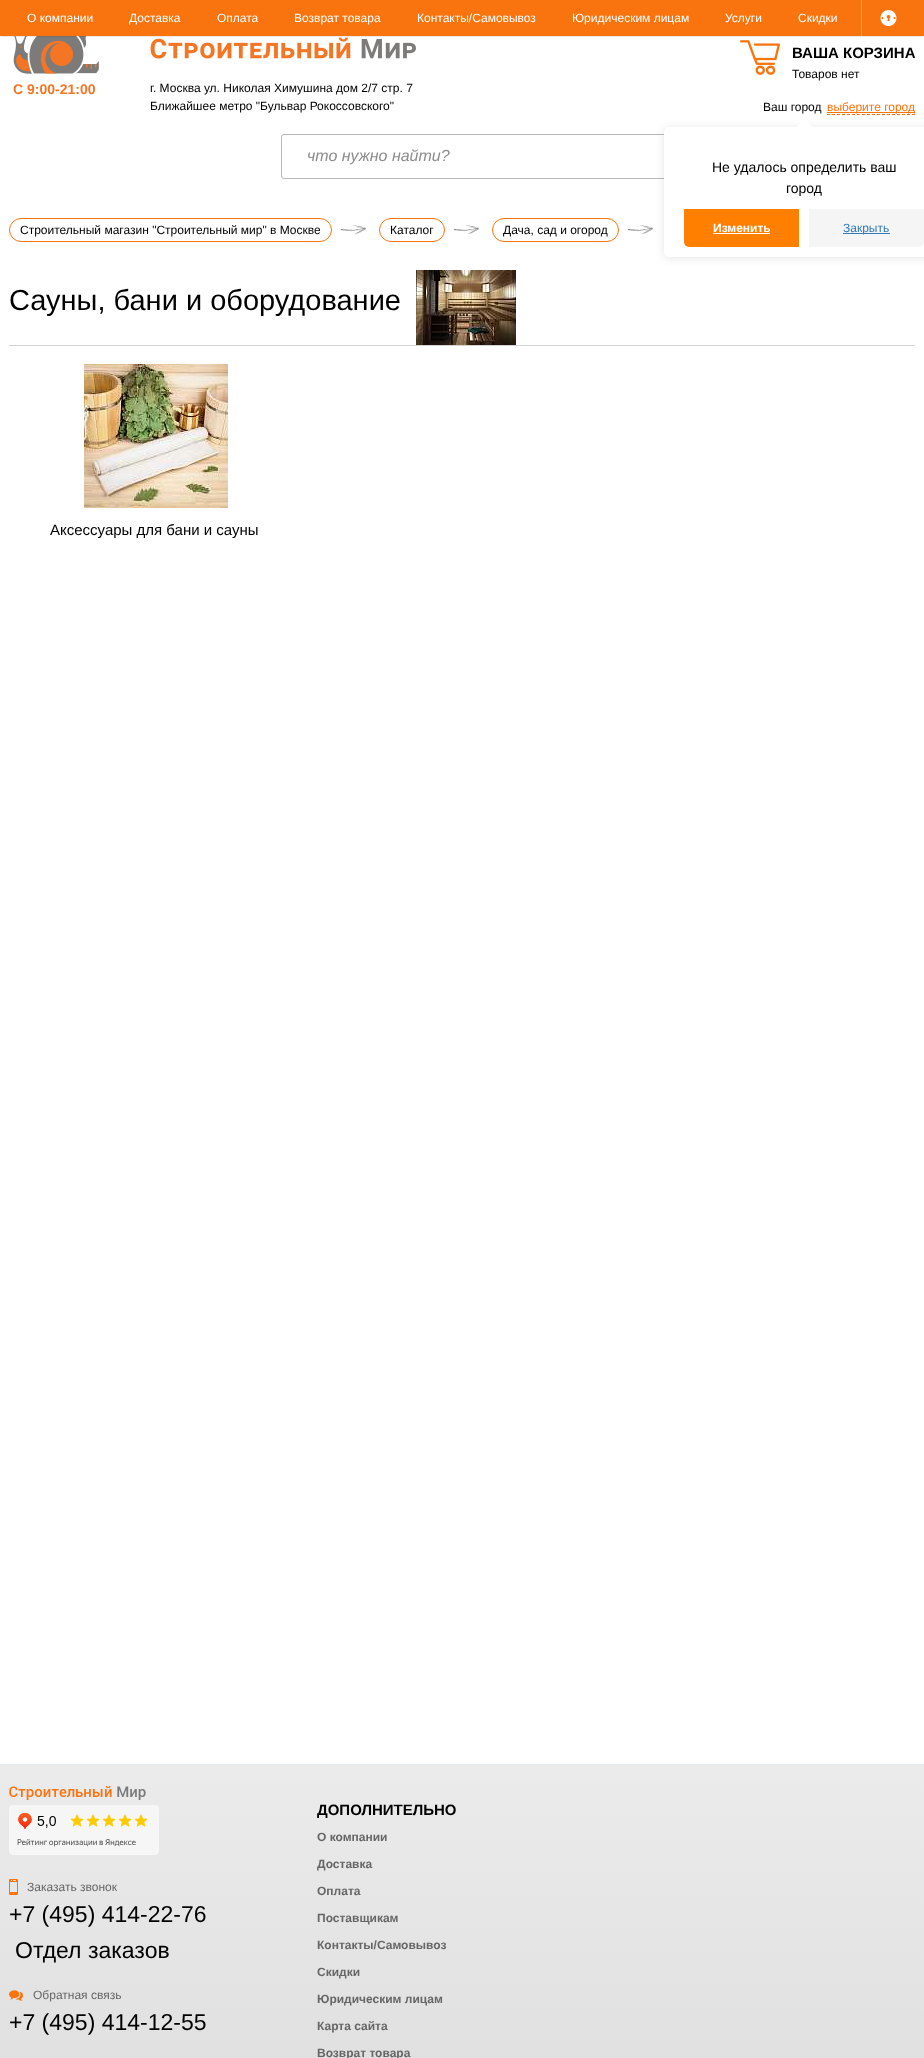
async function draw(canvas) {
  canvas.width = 924
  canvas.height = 2058
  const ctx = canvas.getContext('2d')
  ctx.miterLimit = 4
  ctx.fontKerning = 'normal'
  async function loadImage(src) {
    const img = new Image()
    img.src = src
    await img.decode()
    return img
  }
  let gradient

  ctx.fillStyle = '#fff'
  ctx.fillRect(0, 0, 924, 2058)
  ctx.drawImage(await loadImage('image1.png'), 13, 36, 403, 38)
  ctx.fillStyle = '#000'
  ctx.filter = 'blur(1px)'
  ctx.beginPath()
  ctx.rect(1, 1, 922, 34)
  ctx.fill()
  ctx.filter = 'none'
  ctx.fillStyle = '#f9730e'
  ctx.fillRect(0, 0, 924, 36)
  ctx.font = '12px Liberation Sans'
  ctx.fillStyle = '#fff'
  ctx.fillText('О компании', 27, 22)
  ctx.fillText('Доставка', 129, 22)
  ctx.fillText('Оплата', 217, 22)
  ctx.fillText('Возврат товара', 294, 22)
  ctx.fillText('Контакты/Самовывоз', 417, 22)
  ctx.fillText('Юридическим лицам', 572, 22)
  ctx.fillText('Услуги', 725, 22)
  ctx.fillText('Скидки', 798, 22)
  ctx.fillStyle = '#b4b4b4'
  ctx.fillRect(861, 0, 1, 36)
  ctx.drawImage(await loadImage('image0.png'), 880, 10, 17, 16)
  ctx.font = 'bold 14px Liberation Sans'
  ctx.fillStyle = '#f47523'
  ctx.fillText('С 9:00-21:00', 13, 94)
  ctx.font = '12px Liberation Sans'
  ctx.fillStyle = '#000'
  ctx.fillText('г. Москва ул. Николая Химушина дом 2/7 стр. 7', 150, 92)
  ctx.fillText('Ближайшее метро "Бульвар Рокоссовского"', 150, 110)
  ctx.drawImage(await loadImage('image2.png'), 740, 40, 40, 35)
  ctx.font = 'bold 15px Liberation Sans'
  ctx.fillText('ВАША КОРЗИНА', 792, 58)
  ctx.font = '12px Liberation Sans'
  ctx.fillText('Товаров нет', 792, 78)
  ctx.fillText('Ваш город', 763, 111)
  ctx.fillStyle = '#f9730e'
  ctx.fillRect(827, 112, 88, 1)
  ctx.fillText('выберите город', 827, 111)
  ctx.beginPath()
  ctx.moveTo(827, 114.5)
  ctx.lineTo(915, 114.5)
  ctx.strokeStyle = '#f9730e'
  ctx.setLineDash([3, 2])
  ctx.stroke()
  ctx.beginPath()
  ctx.roundRect(281.5, 134.5, 633, 44, 2.5)
  ctx.strokeStyle = '#b8b8b8'
  ctx.setLineDash([])
  ctx.stroke()
  ctx.font = 'italic 16px Liberation Sans'
  ctx.fillStyle = '#8c8c8c'
  ctx.fillText('что нужно найти?', 307, 161)
  ctx.beginPath()
  ctx.roundRect(9.5, 218.5, 322, 23, 11.5)
  ctx.strokeStyle = '#f9730e'
  ctx.stroke()
  ctx.font = '12px Liberation Sans'
  ctx.fillStyle = '#000'
  ctx.fillText('Строительный магазин "Строительный мир" в Москве', 20, 234)
  ctx.drawImage(await loadImage('image3.png'), 341, 225, 25, 11)
  ctx.beginPath()
  ctx.roundRect(379.5, 218.5, 65, 23, 11.5)
  ctx.stroke()
  ctx.fillText('Каталог', 390, 234)
  ctx.drawImage(await loadImage('image3.png'), 454, 225, 25, 11)
  ctx.beginPath()
  ctx.roundRect(492.5, 218.5, 126, 23, 11.5)
  ctx.stroke()
  ctx.fillText('Дача, сад и огород', 503, 234)
  ctx.drawImage(await loadImage('image3.png'), 628, 225, 25, 11)
  ctx.fillStyle = '#d3d3d3'
  ctx.fillRect(9, 345, 906, 1)
  ctx.font = '29px Liberation Sans'
  ctx.fillStyle = '#000'
  ctx.fillText('Сауны, бани и оборудование', 9, 310)
  ctx.drawImage(await loadImage('image4.png'), 416, 270, 100, 75)
  ctx.drawImage(await loadImage('image5.png'), 84, 364, 144, 144)
  ctx.font = '15px Liberation Sans'
  ctx.fillText('Аксессуары для бани и сауны', 50, 535)
  gradient = ctx.createLinearGradient(462, 1765, 462, 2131)
  gradient.addColorStop(0, '#ebebeb')
  gradient.addColorStop(1, '#dedede')
  ctx.fillStyle = gradient
  ctx.fillRect(0, 1765, 924, 293)
  ctx.fillStyle = '#e5ebf1'
  ctx.fillRect(0, 1764, 924, 1)
  ctx.drawImage(await loadImage('image6.png'), 9, 1786, 137, 14)
  ctx.drawImage(await loadImage('image7.png'), 9, 1805, 150, 50)
  ctx.drawImage(await loadImage('image8.png'), 9, 1879, 9, 16)
  ctx.font = '12px Liberation Sans'
  ctx.fillStyle = '#666'
  ctx.fillText('Заказать звонок', 27, 1891)
  ctx.font = '23px Liberation Sans'
  ctx.fillStyle = '#000'
  ctx.fillText('+7 (495) 414-22-76', 9, 1922)
  ctx.fillText('Отдел заказов', 15, 1958)
  ctx.drawImage(await loadImage('image9.png'), 9, 1990, 14, 11)
  ctx.font = '12px Liberation Sans'
  ctx.fillStyle = '#666'
  ctx.fillText('Обратная связь', 33, 1999)
  ctx.font = '23px Liberation Sans'
  ctx.fillStyle = '#000'
  ctx.fillText('+7 (495) 414-12-55', 9, 2030)
  ctx.font = 'bold 15px Liberation Sans'
  ctx.fillText('ДОПОЛНИТЕЛЬНО', 317, 1815)
  ctx.font = 'bold 12px Liberation Sans'
  ctx.fillStyle = '#666'
  ctx.fillText('О компании', 317, 1841)
  ctx.fillText('Доставка', 317, 1868)
  ctx.fillText('Оплата', 317, 1895)
  ctx.fillText('Поставщикам', 317, 1922)
  ctx.fillText('Контакты/Самовывоз', 317, 1949)
  ctx.fillText('Скидки', 317, 1976)
  ctx.fillText('Юридическим лицам', 317, 2003)
  ctx.fillText('Карта сайта', 317, 2030)
  ctx.fillText('Возврат товара', 317, 2057)
  ctx.fillStyle = '#0000001a'
  ctx.filter = 'blur(5px)'
  ctx.beginPath()
  ctx.roundRect(664, 128, 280, 130, 5)
  ctx.fill()
  ctx.filter = 'none'
  ctx.fillStyle = '#fff'
  ctx.beginPath()
  ctx.roundRect(664, 127, 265, 130, 5)
  ctx.fill()
  ctx.beginPath()
  ctx.moveTo(804.5, 119)
  ctx.lineTo(812.5, 127)
  ctx.lineTo(804.5, 135)
  ctx.lineTo(796.5, 127)
  ctx.closePath()
  ctx.fill()
  ctx.font = '14px Liberation Sans'
  ctx.fillStyle = '#000'
  ctx.fillText('Не удалось определить ваш', 712, 172)
  ctx.fillText('город', 786, 193)
  ctx.fillStyle = '#ff8000'
  ctx.beginPath()
  ctx.roundRect(684, 209, 115, 38, [0, 0, 0, 5])
  ctx.fill()
  ctx.font = 'bold 12px Liberation Sans'
  ctx.fillStyle = '#fff'
  ctx.fillText('Изменить', 713, 232)
  ctx.fillRect(713, 233, 57, 1)
  ctx.fillStyle = '#f5f5f5'
  ctx.beginPath()
  ctx.roundRect(809, 209, 115, 38, [0, 0, 5, 0])
  ctx.fill()
  ctx.fillStyle = '#337ab7'
  ctx.fillRect(843, 233, 47, 1)
  ctx.font = '12px Liberation Sans'
  ctx.fillText('Закрыть', 843, 232)
}

draw(document.querySelector('canvas'))
